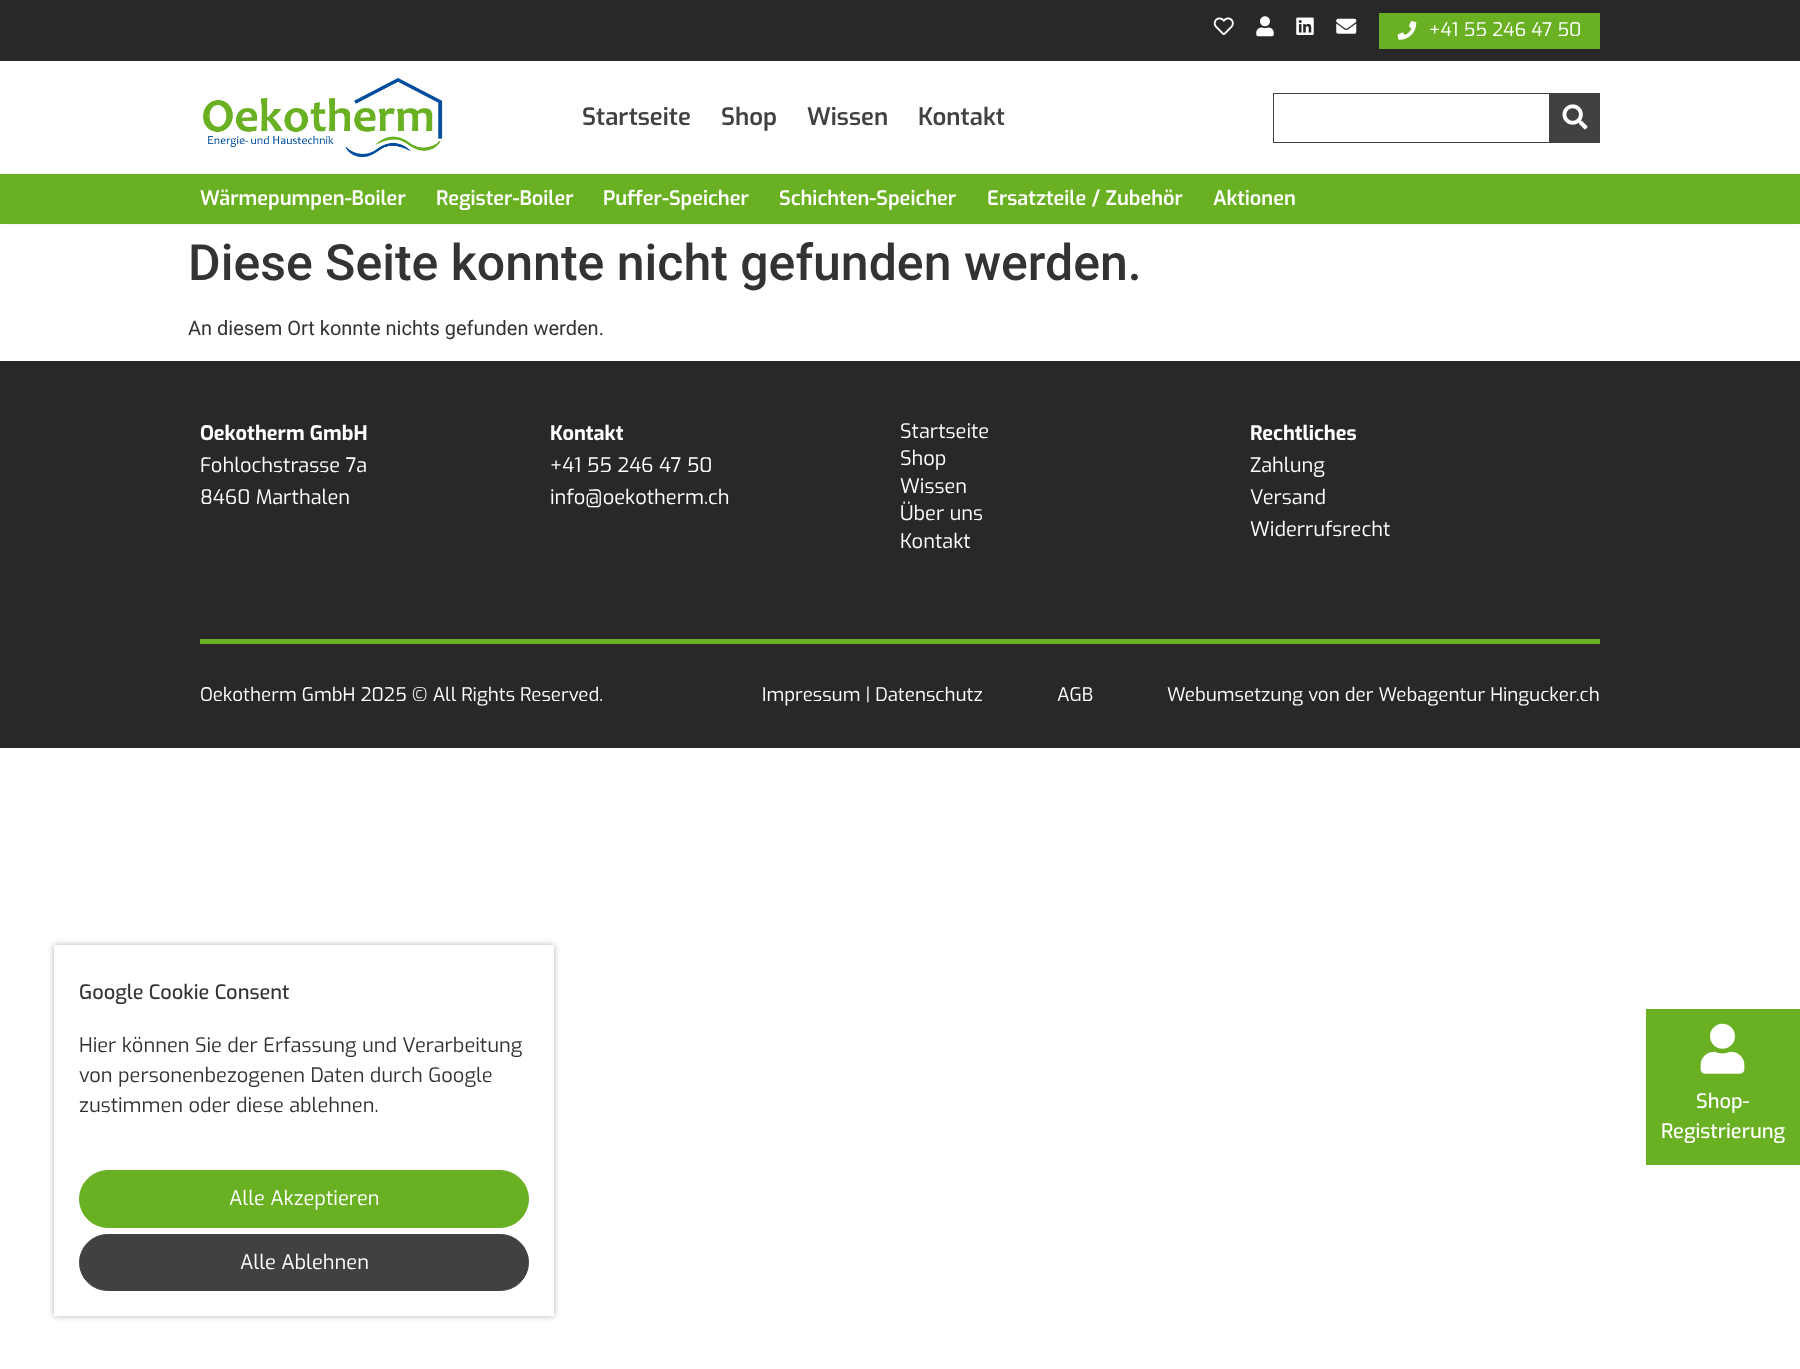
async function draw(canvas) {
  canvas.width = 1800
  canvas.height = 1369
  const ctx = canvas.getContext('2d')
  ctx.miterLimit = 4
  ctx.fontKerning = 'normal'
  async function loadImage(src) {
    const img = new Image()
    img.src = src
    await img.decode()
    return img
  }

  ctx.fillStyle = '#fff'
  ctx.fillRect(0, 0, 1800, 1369)
  ctx.fillStyle = '#282828'
  ctx.fillRect(0, 0, 1800, 61)
  ctx.drawImage(await loadImage('image0.png'), 1213, 17, 21, 18)
  ctx.drawImage(await loadImage('image1.png'), 1256, 16, 18, 21)
  ctx.drawImage(await loadImage('image2.png'), 1296, 17, 18, 18)
  ctx.drawImage(await loadImage('image3.png'), 1336, 18, 21, 16)
  ctx.fillStyle = '#6ab023'
  ctx.fillRect(1379, 13, 221, 36)
  ctx.drawImage(await loadImage('image4.png'), 1397, 21, 20, 19)
  ctx.font = '18.75px Exo'
  ctx.fillStyle = '#fff'
  ctx.fillText('+41 55 246 47 50', 1429, 36)
  ctx.fillStyle = '#0000000d'
  ctx.filter = 'blur(2px)'
  ctx.beginPath()
  ctx.rect(0, 175, 1800, 50)
  ctx.fill()
  ctx.filter = 'none'
  ctx.fillStyle = '#fff'
  ctx.fillRect(2, 173, 1796, 1)
  ctx.drawImage(await loadImage('image5.png'), 202, 77, 241, 80)
  ctx.font = '600 24px Exo'
  ctx.fillStyle = '#414141'
  ctx.fillText('Startseite', 582, 125)
  ctx.fillText('Shop', 721, 125)
  ctx.fillText('Wissen', 807, 125)
  ctx.fillText('Kontakt', 918, 125)
  ctx.strokeStyle = '#414141'
  ctx.strokeRect(1273.5, 93.5, 276, 49)
  ctx.fillRect(1550, 93, 50, 50)
  ctx.drawImage(await loadImage('image6.png'), 1562, 104, 26, 26)
  ctx.fillStyle = '#6ab023'
  ctx.fillRect(0, 174, 1800, 50)
  ctx.font = '600 20px Exo'
  ctx.fillStyle = '#fff'
  ctx.fillText('Wärmepumpen-Boiler', 200, 205)
  ctx.fillText('Register-Boiler', 436, 205)
  ctx.fillText('Puffer-Speicher', 603, 205)
  ctx.fillText('Schichten-Speicher', 779, 205)
  ctx.fillText('Ersatzteile / Zubehör', 987, 205)
  ctx.fillText('Aktionen', 1213, 205)
  ctx.font = '500 50px Roboto'
  ctx.fillStyle = '#333'
  ctx.fillText('Diese Seite konnte nicht gefunden werden.', 188, 280)
  ctx.font = '20px Roboto'
  ctx.fillText('An diesem Ort konnte nichts gefunden werden.', 188, 335)
  ctx.fillStyle = '#282828'
  ctx.fillRect(0, 361, 1800, 387)
  ctx.font = 'bold 20px Exo'
  ctx.fillStyle = '#fff'
  ctx.fillText('Oekotherm GmbH', 200, 440)
  ctx.font = '20px Exo'
  ctx.fillText('Fohlochstrasse 7a', 200, 472)
  ctx.fillText('8460 Marthalen', 200, 504)
  ctx.font = 'bold 20px Exo'
  ctx.fillText('Kontakt', 550, 440)
  ctx.font = '20px Exo'
  ctx.fillText('+41 55 246 47 50', 550, 472)
  ctx.fillText('info@oekotherm.ch', 550, 504)
  ctx.fillText('Startseite', 900, 438)
  ctx.fillText('Shop', 900, 465)
  ctx.fillText('Wissen', 900, 493)
  ctx.fillText('Über uns', 900, 520)
  ctx.fillText('Kontakt', 900, 548)
  ctx.font = 'bold 20px Exo'
  ctx.fillText('Rechtliches', 1250, 440)
  ctx.font = '20px Exo'
  ctx.fillText('Zahlung', 1250, 472)
  ctx.fillText('Versand', 1250, 504)
  ctx.fillText('Widerrufsrecht', 1250, 536)
  ctx.fillStyle = '#6ab023'
  ctx.fillRect(1646, 1009, 154, 156)
  ctx.drawImage(await loadImage('image7.png'), 1700, 1023, 45, 51)
  ctx.font = '500 20px Exo'
  ctx.fillStyle = '#fff'
  ctx.fillText('Shop-', 1696, 1108)
  ctx.fillText('Registrierung', 1661, 1138)
  ctx.fillStyle = '#6ab023'
  ctx.fillRect(200, 639, 1400, 5)
  ctx.font = '18.75px Exo'
  ctx.fillStyle = '#fff'
  ctx.fillText('Oekotherm GmbH 2025 © All Rights Reserved.', 200, 701)
  ctx.fillText('Impressum | Datenschutz', 762, 701)
  ctx.fillText('AGB', 1057, 701)
  ctx.fillText('Webumsetzung von der Webagentur Hingucker.ch', 1167, 701)
  ctx.fillStyle = '#0000004d'
  ctx.filter = 'blur(3px)'
  ctx.beginPath()
  ctx.rect(54, 945, 500, 371)
  ctx.fill()
  ctx.filter = 'none'
  ctx.fillStyle = '#fff'
  ctx.fillRect(54, 945, 500, 371)
  ctx.font = '500 20px Exo'
  ctx.fillStyle = '#333'
  ctx.fillText('Google Cookie Consent', 79, 999)
  ctx.font = '20px Exo'
  ctx.fillText('Hier können Sie der Erfassung und Verarbeitung', 79, 1052)
  ctx.fillText('von personenbezogenen Daten durch Google', 79, 1082)
  ctx.fillText('zustimmen oder diese ablehnen.', 79, 1112)
  ctx.fillStyle = '#6ab023'
  ctx.beginPath()
  ctx.roundRect(79.5, 1170.5, 449, 57, 28.5)
  ctx.fill()
  ctx.strokeStyle = '#6ab023'
  ctx.stroke()
  ctx.fillStyle = '#fff'
  ctx.fillText('Alle Akzeptieren', 229, 1205)
  ctx.fillStyle = '#414141'
  ctx.beginPath()
  ctx.roundRect(79.5, 1234.5, 449, 56, 28)
  ctx.fill()
  ctx.strokeStyle = '#414141'
  ctx.stroke()
  ctx.fillStyle = '#fff'
  ctx.fillText('Alle Ablehnen', 240, 1269)
}

draw(document.querySelector('canvas'))
